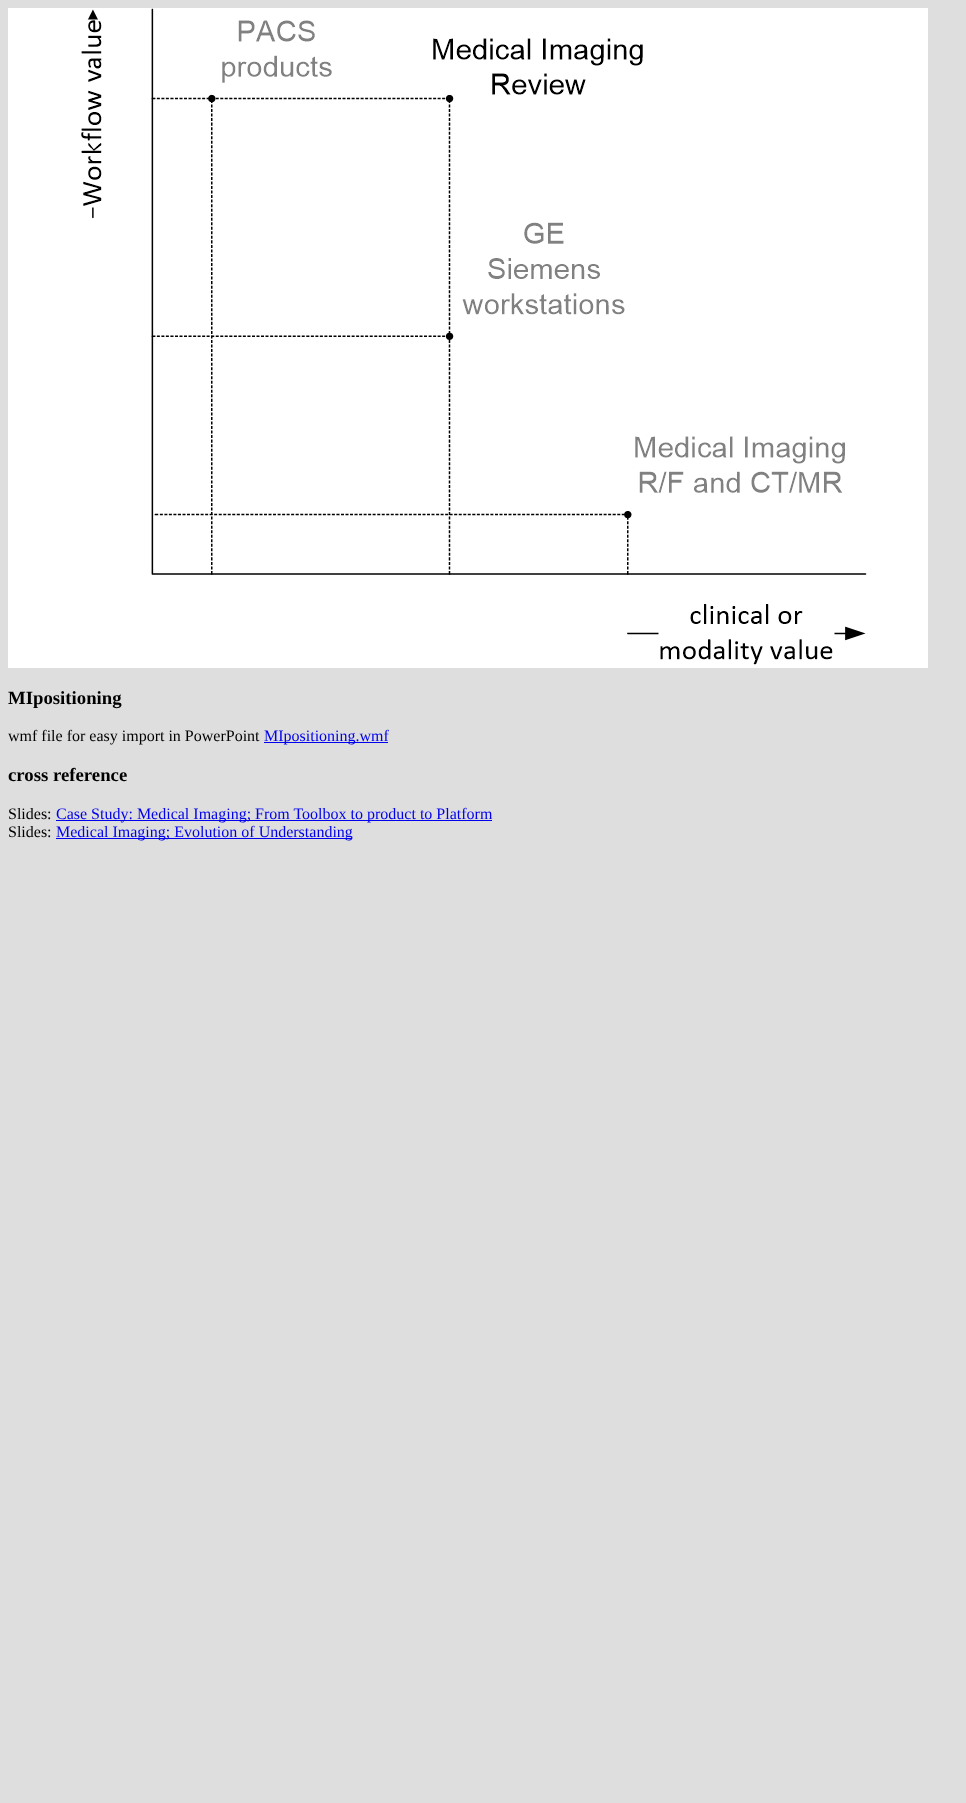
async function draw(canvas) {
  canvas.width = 966
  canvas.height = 1803
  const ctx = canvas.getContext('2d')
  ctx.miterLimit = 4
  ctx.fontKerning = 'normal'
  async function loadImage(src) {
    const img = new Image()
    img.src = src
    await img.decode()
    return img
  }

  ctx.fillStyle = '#dedede'
  ctx.fillRect(0, 0, 966, 1803)
  ctx.drawImage(await loadImage('image0.png'), 8, 8, 920, 660)
  ctx.font = 'bold 18.75px Liberation Serif'
  ctx.fillStyle = '#000'
  ctx.fillText('MIpositioning', 8, 704)
  ctx.font = '16px Liberation Serif'
  ctx.fillText('wmf file for easy import in PowerPoint', 8, 741)
  ctx.fillStyle = '#00e'
  ctx.fillRect(264, 742, 124, 1)
  ctx.fillText('MIpositioning.wmf', 264, 741)
  ctx.font = 'bold 18.75px Liberation Serif'
  ctx.fillStyle = '#000'
  ctx.fillText('cross reference', 8, 781)
  ctx.font = '16px Liberation Serif'
  ctx.fillText('Slides:', 8, 819)
  ctx.fillStyle = '#00e'
  ctx.fillRect(56, 820, 436, 1)
  ctx.fillText('Case Study: Medical Imaging; From Toolbox to product to Platform', 56, 819)
  ctx.fillStyle = '#000'
  ctx.fillText('Slides:', 8, 837)
  ctx.fillStyle = '#00e'
  ctx.fillRect(56, 838, 296, 1)
  ctx.fillText('Medical Imaging; Evolution of Understanding', 56, 837)
}

draw(document.querySelector('canvas'))
